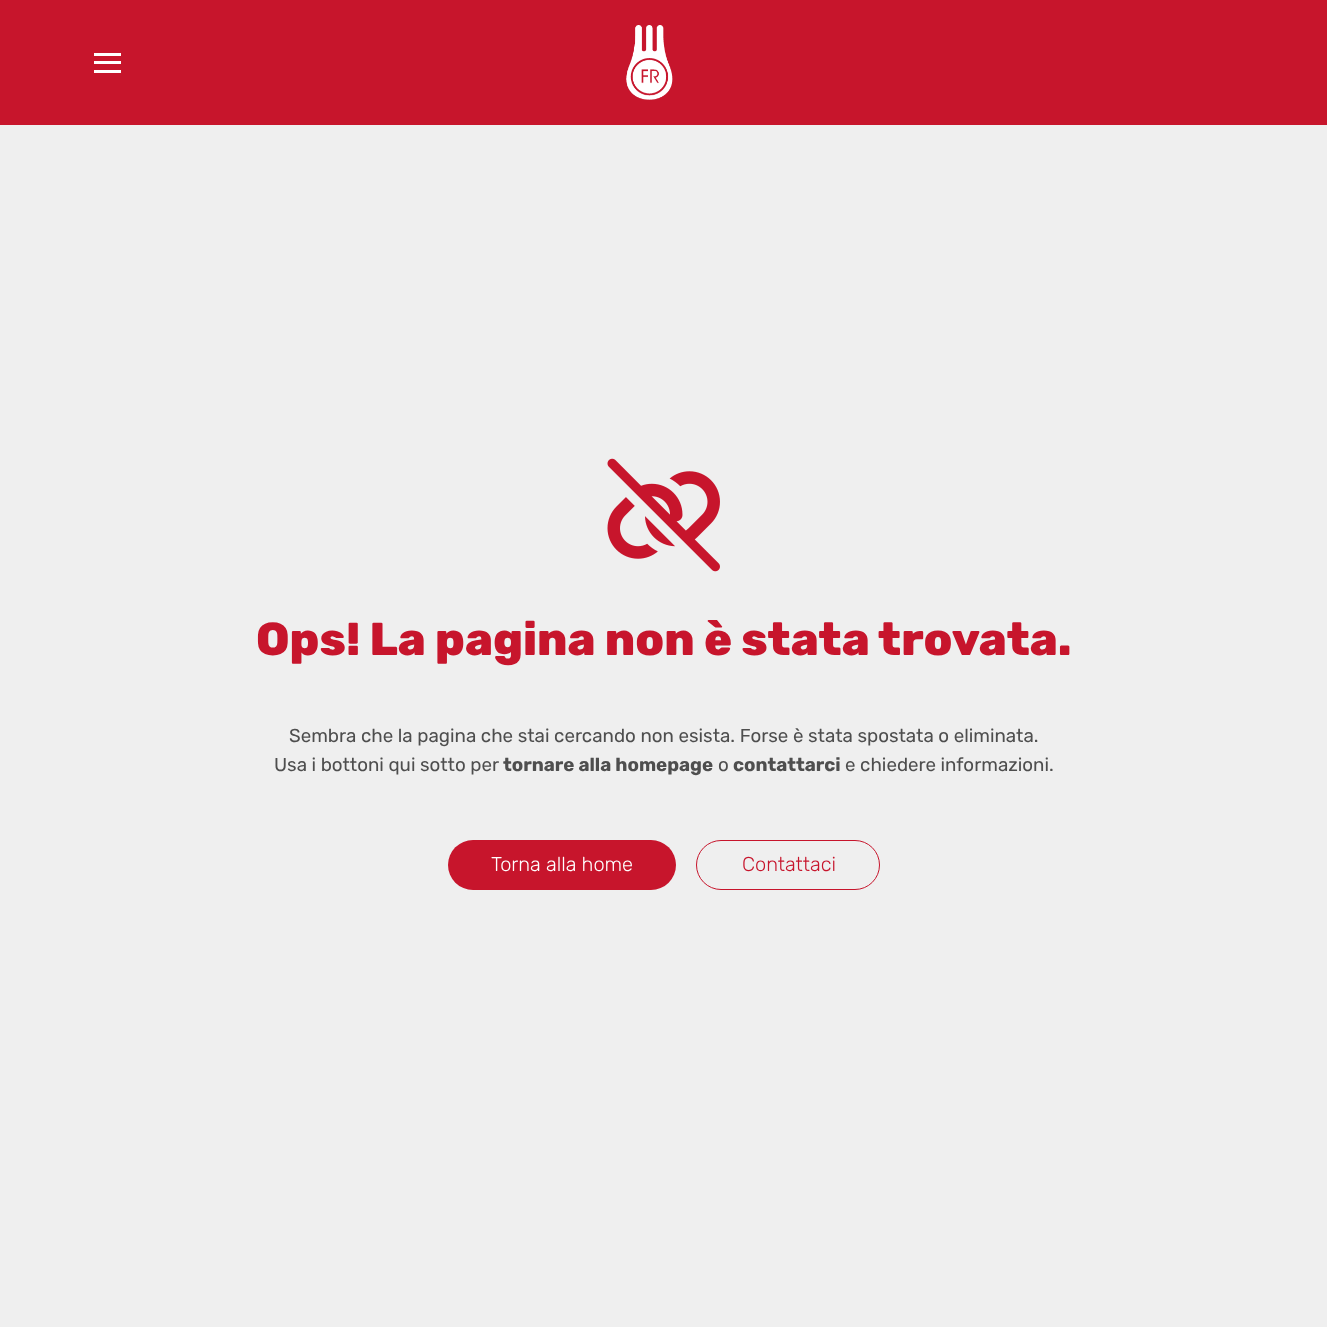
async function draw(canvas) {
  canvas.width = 1327
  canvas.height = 1327
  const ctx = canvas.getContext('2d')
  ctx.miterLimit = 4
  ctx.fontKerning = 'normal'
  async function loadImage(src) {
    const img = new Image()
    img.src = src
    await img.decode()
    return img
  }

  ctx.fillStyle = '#efefef'
  ctx.fillRect(0, 0, 1327, 1327)
  ctx.fillStyle = '#c7152c'
  ctx.fillRect(0, 0, 1327, 125)
  ctx.fillStyle = '#fff'
  ctx.fillRect(94, 53, 27, 3)
  ctx.fillRect(94, 61, 27, 3)
  ctx.fillRect(94, 70, 27, 3)
  ctx.drawImage(await loadImage('image0.png'), 626, 25, 47, 75)
  ctx.drawImage(await loadImage('image1.png'), 607, 458, 113, 114)
  ctx.font = '800 46.25px Rubik'
  ctx.fillStyle = '#c7152c'
  ctx.fillText('Ops! La pagina non è stata trovata.', 256, 655)
  ctx.font = '18.75px Rubik'
  ctx.fillStyle = '#4e4e4e'
  ctx.fillText('Sembra che la pagina che stai cercando non esista. Forse è stata spostata o eliminata.', 289, 742)
  ctx.fillText('Usa i bottoni qui sotto per', 274, 771)
  ctx.font = 'bold 18.75px Rubik'
  ctx.fillText('tornare alla homepage', 503, 771)
  ctx.font = '18.75px Rubik'
  ctx.fillText('o', 718, 771)
  ctx.font = 'bold 18.75px Rubik'
  ctx.fillText('contattarci', 733, 771)
  ctx.font = '18.75px Rubik'
  ctx.fillText('e chiedere informazioni.', 845, 771)
  ctx.fillStyle = '#c7152c'
  ctx.beginPath()
  ctx.roundRect(448, 840, 228, 50, 25)
  ctx.fill()
  ctx.font = '300 20px Rubik'
  ctx.fillStyle = '#fff'
  ctx.fillText('Torna alla home', 491, 871)
  ctx.beginPath()
  ctx.roundRect(696.5, 840.5, 183, 49, 24.5)
  ctx.strokeStyle = '#c7152c'
  ctx.stroke()
  ctx.fillStyle = '#c7152c'
  ctx.fillText('Contattaci', 742, 871)
}

draw(document.querySelector('canvas'))
